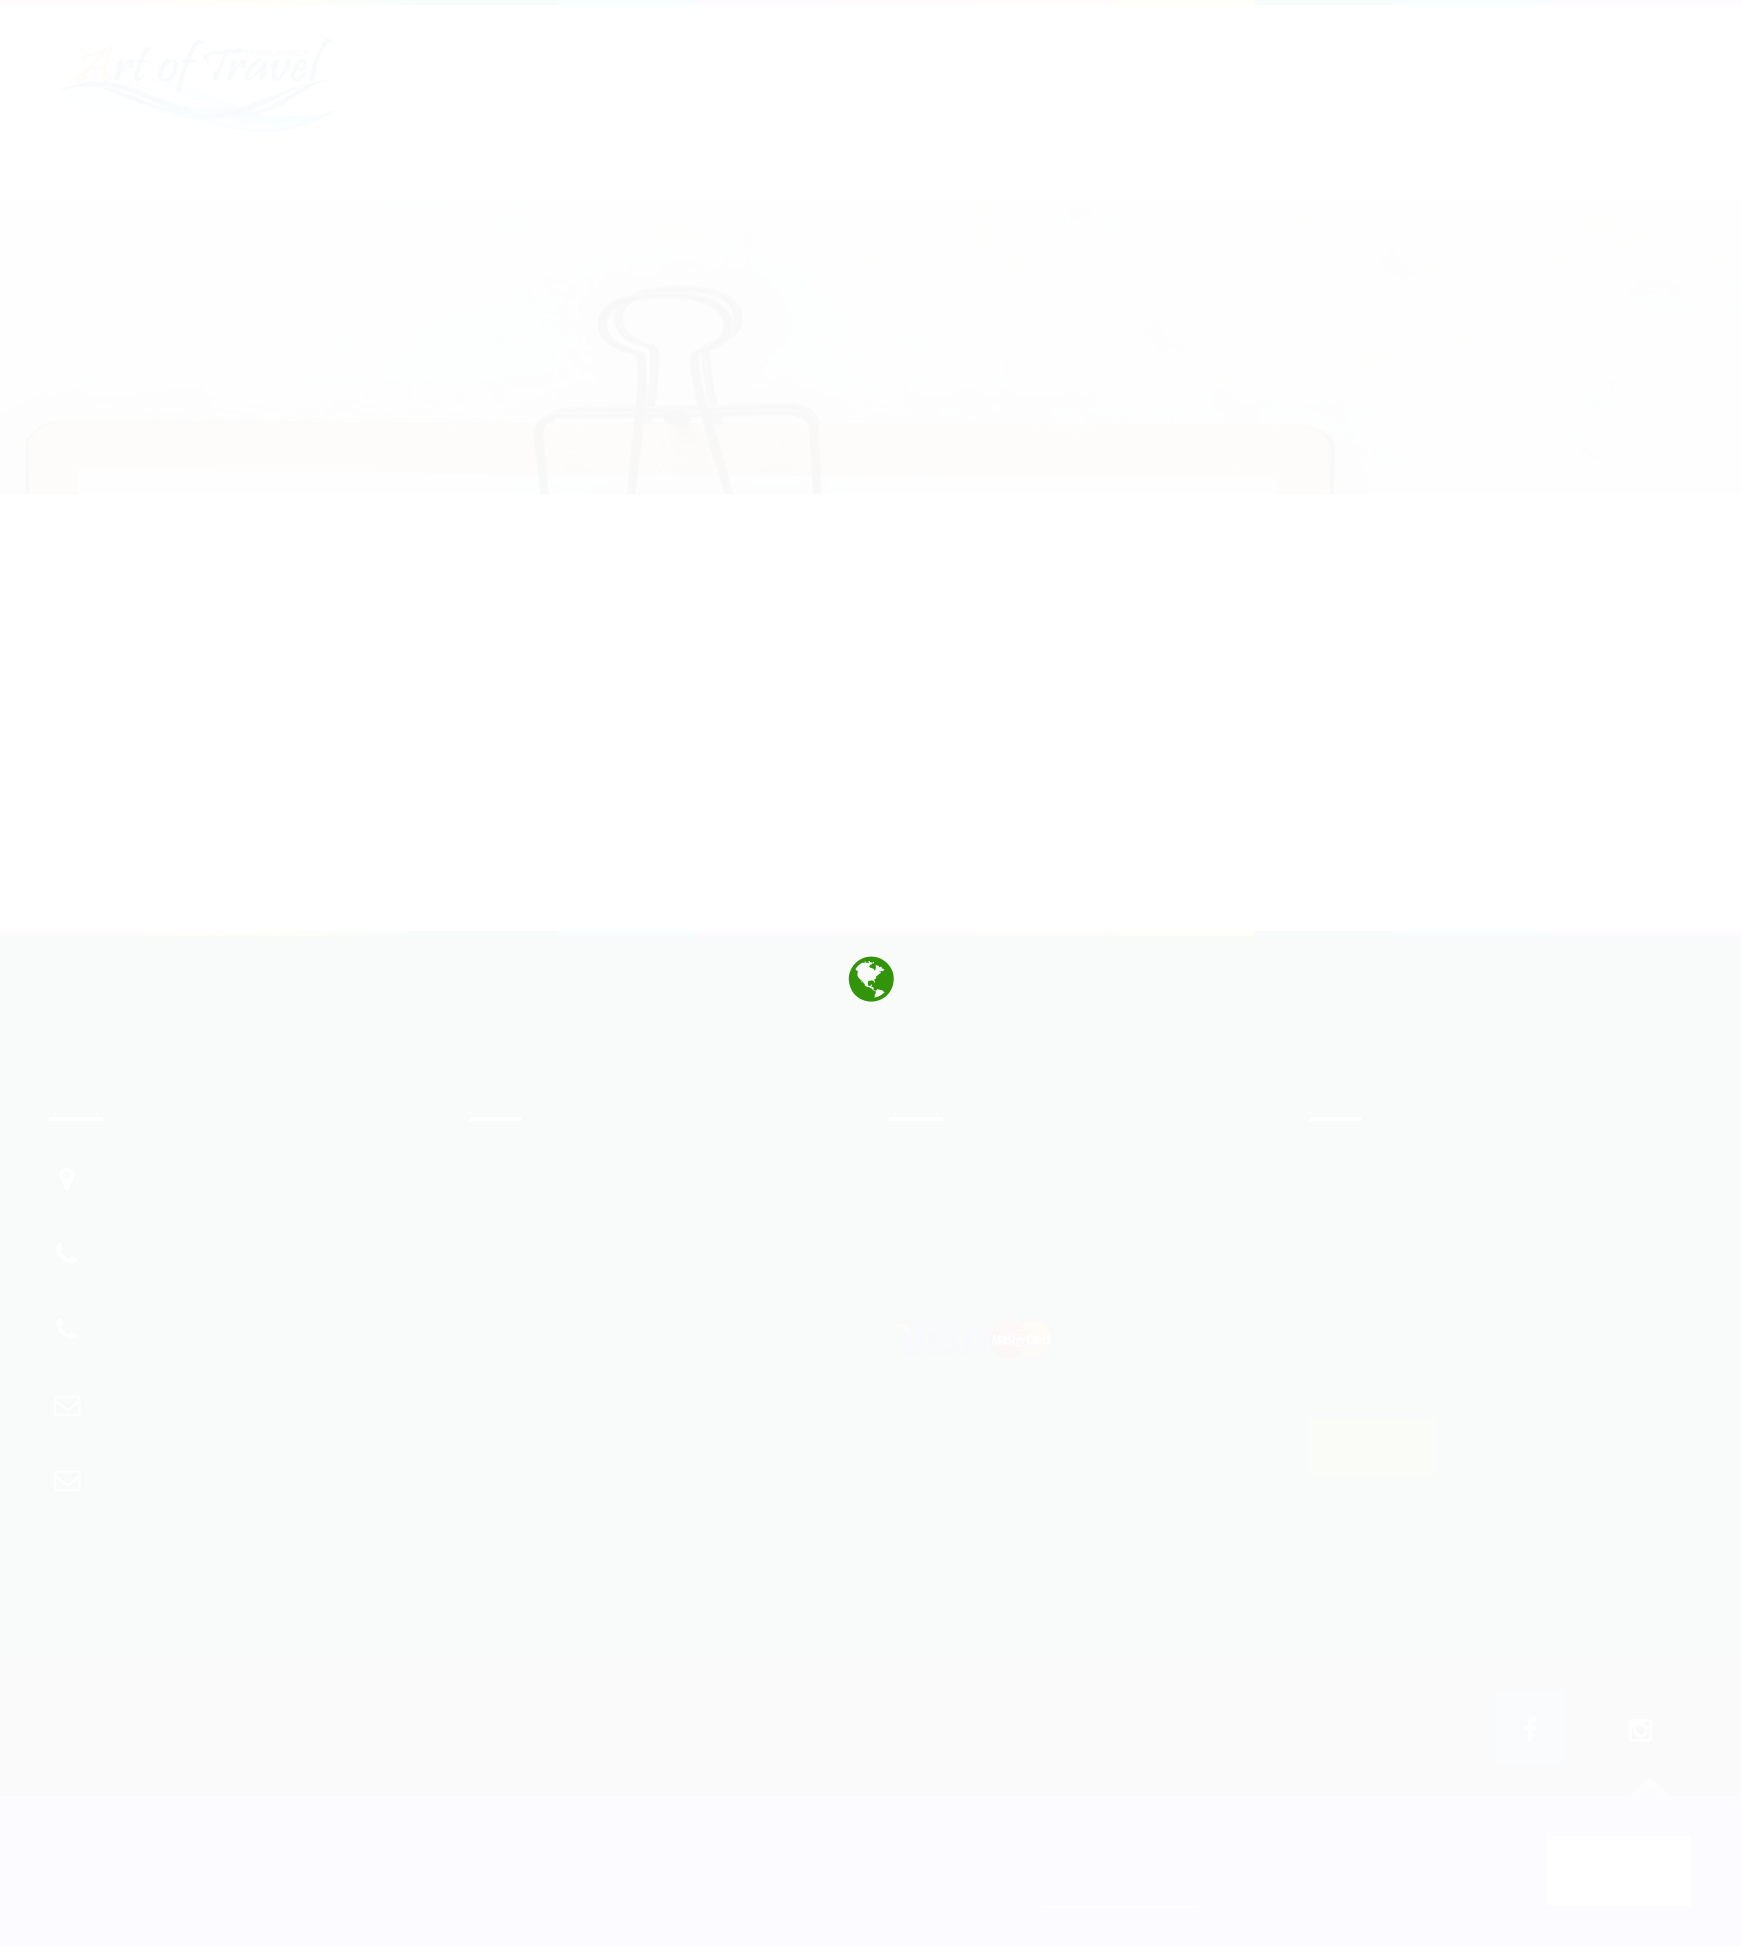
async function draw(canvas) {
  canvas.width = 1741
  canvas.height = 1946
  const ctx = canvas.getContext('2d')
  ctx.miterLimit = 4
  ctx.fontKerning = 'normal'
  async function loadImage(src) {
    const img = new Image()
    img.src = src
    await img.decode()
    return img
  }
  let gradient

  ctx.fillStyle = '#fff'
  ctx.fillRect(0, 0, 1741, 1946)
  gradient = ctx.createLinearGradient(0, 2.6, 1741, 2.6)
  gradient.addColorStop(0, '#fffafb')
  gradient.addColorStop(0.08, '#fffafb')
  gradient.addColorStop(0.08, '#fffcfb')
  gradient.addColorStop(0.16, '#fffef8')
  gradient.addColorStop(0.24, '#f8fdfc')
  gradient.addColorStop(0.32, '#f8fdfc')
  gradient.addColorStop(0.32, '#f8fdfe')
  gradient.addColorStop(0.4, '#f8fdfe')
  gradient.addColorStop(0.4, '#fdfbfe')
  gradient.addColorStop(0.48, '#fdfbfe')
  gradient.addColorStop(0.48, '#fffafb')
  gradient.addColorStop(0.56, '#fffafb')
  gradient.addColorStop(0.56, '#fffcfb')
  gradient.addColorStop(0.64, '#fffcfb')
  gradient.addColorStop(0.64, '#fffef8')
  gradient.addColorStop(0.72, '#fffef8')
  gradient.addColorStop(0.72, '#f8fdfc')
  gradient.addColorStop(0.8, '#f8fdfc')
  gradient.addColorStop(0.8, '#f8fdfe')
  gradient.addColorStop(0.89, '#f8fdfe')
  gradient.addColorStop(0.89, '#fdfbfe')
  gradient.addColorStop(1, '#fdfbfe')
  ctx.fillStyle = gradient
  ctx.fillRect(0, 0, 1741, 5)
  ctx.drawImage(await loadImage('image0.png'), 58, 33, 288, 104)
  ctx.drawImage(await loadImage('image1.png'), 0, 200, 1741, 294)
  gradient = ctx.createLinearGradient(0, 934, 1741, 934)
  gradient.addColorStop(0, '#fffafb')
  gradient.addColorStop(0.08, '#fffafb')
  gradient.addColorStop(0.08, '#fffcfb')
  gradient.addColorStop(0.16, '#fffef8')
  gradient.addColorStop(0.24, '#f8fdfc')
  gradient.addColorStop(0.32, '#f8fdfc')
  gradient.addColorStop(0.32, '#f8fdfe')
  gradient.addColorStop(0.4, '#f8fdfe')
  gradient.addColorStop(0.4, '#fdfbfe')
  gradient.addColorStop(0.48, '#fdfbfe')
  gradient.addColorStop(0.48, '#fffafb')
  gradient.addColorStop(0.56, '#fffafb')
  gradient.addColorStop(0.56, '#fffcfb')
  gradient.addColorStop(0.64, '#fffcfb')
  gradient.addColorStop(0.64, '#fffef8')
  gradient.addColorStop(0.72, '#fffef8')
  gradient.addColorStop(0.72, '#f8fdfc')
  gradient.addColorStop(0.8, '#f8fdfc')
  gradient.addColorStop(0.8, '#f8fdfe')
  gradient.addColorStop(0.89, '#f8fdfe')
  gradient.addColorStop(0.89, '#fdfbfe')
  gradient.addColorStop(1, '#fdfbfe')
  ctx.fillStyle = gradient
  ctx.fillRect(0, 931, 1741, 5)
  ctx.fillStyle = '#f9fafa'
  ctx.fillRect(0, 936, 1741, 720)
  ctx.fillStyle = '#fff'
  ctx.fillRect(49, 1117, 53, 4)
  ctx.drawImage(await loadImage('image2.png'), 59, 1167, 16, 24)
  ctx.drawImage(await loadImage('image3.png'), 56, 1243, 21, 21)
  ctx.drawImage(await loadImage('image4.png'), 56, 1318, 21, 21)
  ctx.drawImage(await loadImage('image5.png'), 54, 1395, 27, 22)
  ctx.drawImage(await loadImage('image6.png'), 54, 1470, 27, 22)
  ctx.fillRect(469, 1117, 53, 4)
  ctx.fillRect(889, 1117, 53, 4)
  ctx.drawImage(await loadImage('image7.png'), 892, 1320, 161, 39)
  ctx.fillRect(1309, 1117, 53, 4)
  ctx.fillStyle = '#f9fcf7'
  ctx.fillRect(1309, 1419, 126, 56)
  ctx.fillStyle = '#fafafa'
  ctx.fillRect(0, 1656, 1741, 140)
  ctx.fillStyle = '#fafbfd'
  ctx.fillRect(1495, 1691, 70, 73)
  ctx.drawImage(await loadImage('image8.png'), 1523, 1717, 14, 25)
  ctx.drawImage(await loadImage('image9.png'), 1629, 1719, 23, 23)
  ctx.drawImage(await loadImage('image10.png'), 848, 956, 46, 46)
  ctx.drawImage(await loadImage('image11.png'), 1625, 1775, 50, 21)
  ctx.fillStyle = '#fcfbff'
  ctx.fillRect(0, 1796, 1741, 150)
  ctx.fillStyle = '#fff'
  ctx.fillRect(1547, 1836, 144, 70)
  ctx.fillStyle = '#fefeff'
  ctx.fillRect(1043, 1906, 154, 2)
}

draw(document.querySelector('canvas'))
